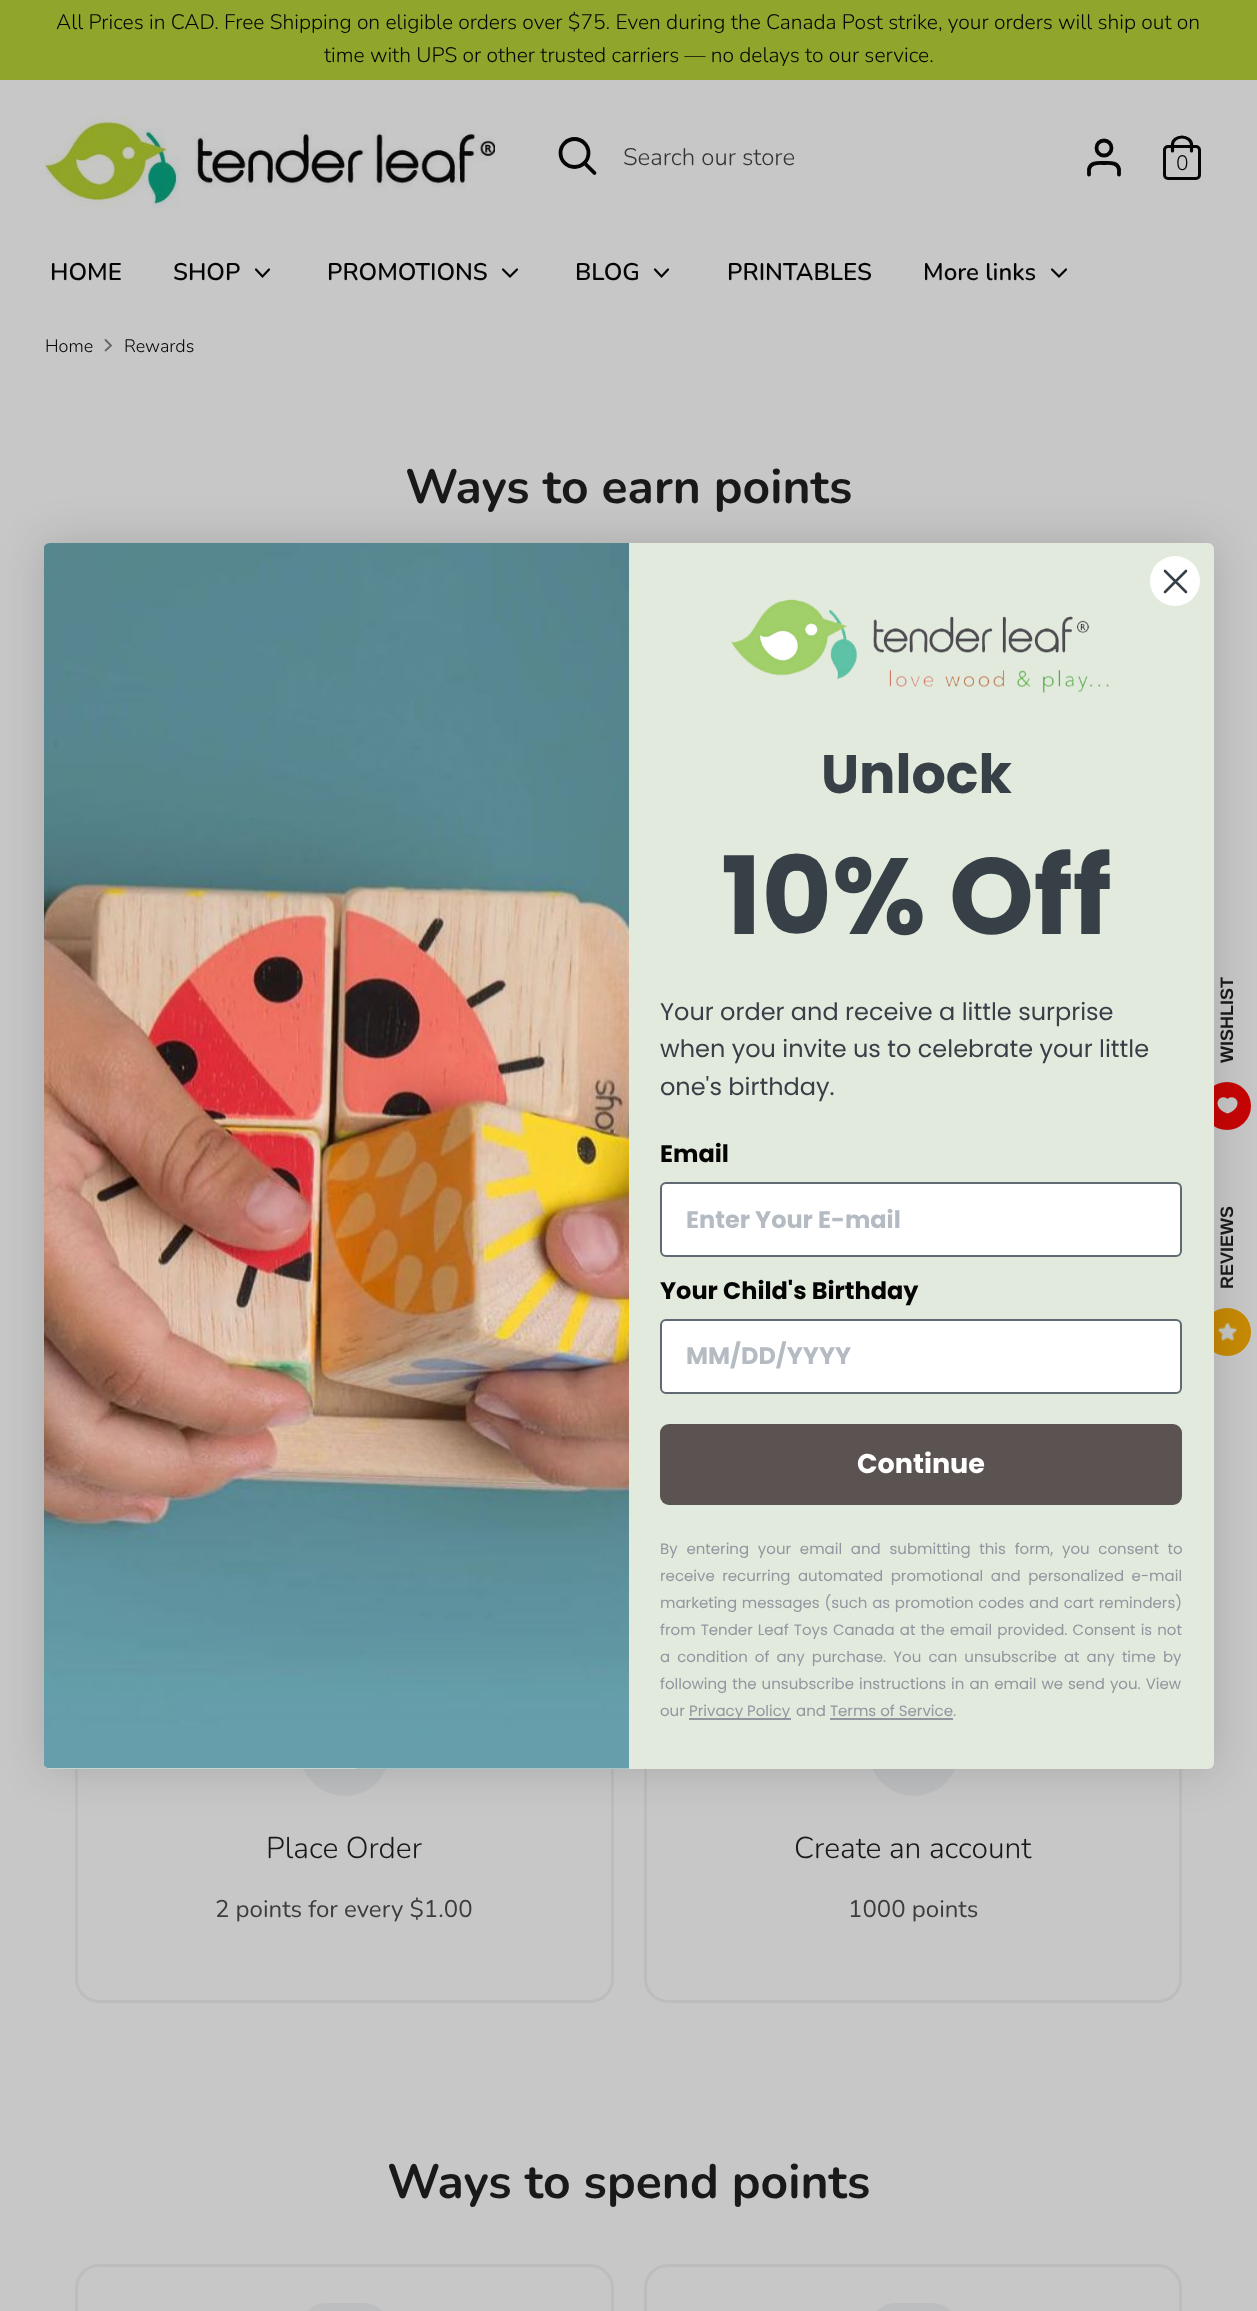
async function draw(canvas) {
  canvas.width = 1257
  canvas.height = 2311
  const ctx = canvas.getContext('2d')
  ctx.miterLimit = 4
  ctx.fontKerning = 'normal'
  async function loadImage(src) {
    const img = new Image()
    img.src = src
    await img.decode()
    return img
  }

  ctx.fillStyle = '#c7c7c7'
  ctx.fillRect(0, 0, 1257, 2311)
  ctx.fillStyle = '#90a52b'
  ctx.fillRect(0, 0, 1257, 80)
  ctx.font = '300 21px Nunito'
  ctx.fillStyle = '#050505'
  ctx.fillText('All Prices in CAD. Free Shipping on eligible orders over $75. Even during the Canada Post strike, your orders will ship out on', 56, 29)
  ctx.fillText('time with UPS or other trusted carriers — no delays to our service.', 324, 62)
  ctx.drawImage(await loadImage('image0.png'), 45, 115, 450, 93)
  ctx.beginPath()
  ctx.arc(574.5, 153, 14, 0, 2 * Math.PI)
  ctx.strokeStyle = '#050505'
  ctx.lineWidth = 3.8
  ctx.stroke()
  ctx.beginPath()
  ctx.moveTo(594.5, 173)
  ctx.lineTo(584.5, 163)
  ctx.lineCap = 'round'
  ctx.stroke()
  ctx.font = '300 24px Nunito'
  ctx.fillStyle = '#353535'
  ctx.fillText('Search our store', 623, 165)
  ctx.beginPath()
  ctx.moveTo(1119, 174.5)
  ctx.lineTo(1119, 169)
  ctx.bezierCurveTo(1117.5, 162, 1109.5, 163, 1104, 163)
  ctx.bezierCurveTo(1098.5, 163, 1090.5, 162, 1089, 169)
  ctx.lineTo(1089, 174.5)
  ctx.stroke()
  ctx.beginPath()
  ctx.arc(1104, 148, 7.5, 0, 2 * Math.PI)
  ctx.stroke()
  ctx.beginPath()
  ctx.roundRect(1164.5, 146.5, 35, 32, 3.5)
  ctx.lineWidth = 3
  ctx.stroke()
  ctx.beginPath()
  ctx.moveTo(1172.5, 151)
  ctx.lineTo(1172.5, 144.5)
  ctx.bezierCurveTo(1172.5, 140.5, 1176.5, 137, 1182, 137)
  ctx.bezierCurveTo(1187, 137, 1191.5, 140.5, 1191.5, 144.5)
  ctx.lineTo(1191.5, 151)
  ctx.lineWidth = 3.2
  ctx.stroke()
  ctx.font = '300 21px Nunito'
  ctx.fillStyle = '#050505'
  ctx.fillText('0', 1176, 170)
  ctx.font = '600 24px Nunito'
  ctx.fillText('HOME', 50, 280)
  ctx.fillText('SHOP', 173, 280)
  ctx.beginPath()
  ctx.moveTo(256, 269.5)
  ctx.lineTo(262.5, 276.5)
  ctx.lineTo(269, 269.5)
  ctx.lineWidth = 2.2
  ctx.stroke()
  ctx.fillText('PROMOTIONS', 327, 280)
  ctx.beginPath()
  ctx.moveTo(503, 269.5)
  ctx.lineTo(510, 276.5)
  ctx.lineTo(517, 269.5)
  ctx.stroke()
  ctx.fillText('BLOG', 575, 280)
  ctx.beginPath()
  ctx.moveTo(655, 269.5)
  ctx.lineTo(661.5, 276.5)
  ctx.lineTo(668, 269.5)
  ctx.stroke()
  ctx.fillText('PRINTABLES', 727, 280)
  ctx.fillText('More links', 923, 280)
  ctx.beginPath()
  ctx.moveTo(1052, 269.5)
  ctx.lineTo(1059, 276.5)
  ctx.lineTo(1066, 269.5)
  ctx.stroke()
  ctx.font = '300 18px Nunito'
  ctx.fillText('Home', 45, 352)
  ctx.beginPath()
  ctx.moveTo(105.5, 350.5)
  ctx.lineTo(111, 345.5)
  ctx.lineTo(105.5, 340)
  ctx.strokeStyle = '#666'
  ctx.lineWidth = 1.8
  ctx.stroke()
  ctx.fillText('Rewards', 124, 352)
  ctx.font = 'bold 48px Nunito'
  ctx.fillStyle = '#191919'
  ctx.fillText('Ways to earn points', 405, 503)
  ctx.beginPath()
  ctx.roundRect(76.5, 1668.5, 536, 333, 22.5)
  ctx.strokeStyle = '#bdbdbd'
  ctx.lineWidth = 3
  ctx.stroke()
  ctx.fillStyle = '#bdbec0'
  ctx.beginPath()
  ctx.arc(345, 1751, 45, 0, 2 * Math.PI)
  ctx.fill()
  ctx.font = '300 30px Nunito'
  ctx.fillStyle = '#191919'
  ctx.fillText('Place Order', 266, 1858)
  ctx.font = '24px Nunito'
  ctx.fillStyle = '#3c3c3c'
  ctx.fillText('2 points for every $1.00', 215, 1917)
  ctx.beginPath()
  ctx.roundRect(645.5, 1668.5, 535, 333, 22.5)
  ctx.stroke()
  ctx.fillStyle = '#bdbec0'
  ctx.beginPath()
  ctx.arc(914, 1751, 45, 0, 2 * Math.PI)
  ctx.fill()
  ctx.font = '300 30px Nunito'
  ctx.fillStyle = '#191919'
  ctx.fillText('Create an account', 794, 1858)
  ctx.font = '24px Nunito'
  ctx.fillStyle = '#3c3c3c'
  ctx.fillText('1000 points', 848, 1917)
  ctx.font = 'bold 48px Nunito'
  ctx.fillStyle = '#191919'
  ctx.fillText('Ways to spend points', 387, 2198)
  ctx.beginPath()
  ctx.roundRect(76.5, 2265.5, 536, 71, 22.5)
  ctx.stroke()
  ctx.fillStyle = '#bdbec0'
  ctx.beginPath()
  ctx.roundRect(300, 2303, 90, 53, 45)
  ctx.fill()
  ctx.beginPath()
  ctx.roundRect(645.5, 2265.5, 535, 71, 22.5)
  ctx.stroke()
  ctx.beginPath()
  ctx.roundRect(869, 2303, 90, 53, 45)
  ctx.fill()
  ctx.fillStyle = '#c70505'
  ctx.beginPath()
  ctx.arc(1227, 1106, 24, 0, 2 * Math.PI)
  ctx.fill()
  ctx.drawImage(await loadImage('image3.png'), 1217, 1097, 21, 17)
  ctx.fillStyle = '#c78a05'
  ctx.beginPath()
  ctx.arc(1227, 1332, 24, 0, 2 * Math.PI)
  ctx.fill()
  ctx.drawImage(await loadImage('image4.png'), 1217, 1322, 20, 19)
  ctx.fillStyle = '#00000026'
  ctx.filter = 'blur(22.5px)'
  ctx.beginPath()
  ctx.roundRect(44, 543, 1170, 1226, 6)
  ctx.fill()
  ctx.filter = 'none'
  ctx.fillStyle = '#e2e9dd'
  ctx.beginPath()
  ctx.roundRect(44, 543, 1170, 1226, 6)
  ctx.fill()
  ctx.fillStyle = '#fff'
  ctx.beginPath()
  ctx.arc(1175, 581, 25, 0, 2 * Math.PI)
  ctx.fill()
  ctx.beginPath()
  ctx.moveTo(1165, 571)
  ctx.lineTo(1186, 592)
  ctx.moveTo(1165, 592)
  ctx.lineTo(1186, 571)
  ctx.closePath()
  ctx.strokeStyle = '#373f47'
  ctx.lineWidth = 2.6
  ctx.lineJoin = 'round'
  ctx.stroke()
  ctx.drawImage(await loadImage('image1.png'), 44, 543, 585, 1226)
  ctx.drawImage(await loadImage('image2.png'), 731, 599, 378, 94)
  ctx.font = 'bold 54px Poppins'
  ctx.fillStyle = '#373f47'
  ctx.fillText('Unlock', 821, 793)
  ctx.font = 'bold 108px Poppins'
  ctx.fillText('10% Off', 721, 934)
  ctx.font = '24px Poppins'
  ctx.fillText('Your order and receive a little surprise', 660, 1020)
  ctx.fillText('when you invite us to celebrate your little', 660, 1057)
  ctx.fillText('one\'s birthday.', 660, 1095)
  ctx.font = 'bold 24px Poppins'
  ctx.fillStyle = '#050505'
  ctx.fillText('Email', 660, 1162)
  ctx.fillStyle = '#fff'
  ctx.beginPath()
  ctx.roundRect(661, 1183, 520, 73, 5)
  ctx.fill()
  ctx.strokeStyle = '#606a72'
  ctx.lineWidth = 2
  ctx.lineJoin = 'miter'
  ctx.stroke()
  ctx.fillStyle = '#b4bbc3'
  ctx.fillText('Enter Your E-mail', 686, 1228)
  ctx.fillStyle = '#050505'
  ctx.fillText('Your Child\'s Birthday', 660, 1299)
  ctx.fillStyle = '#fff'
  ctx.beginPath()
  ctx.roundRect(661, 1320, 520, 73, 5)
  ctx.fill()
  ctx.stroke()
  ctx.fillStyle = '#b4bbc3'
  ctx.fillText('MM/DD/YYYY', 686, 1364)
  ctx.fillStyle = '#5b5351'
  ctx.beginPath()
  ctx.roundRect(660, 1424, 522, 81, 9)
  ctx.fill()
  ctx.font = 'bold 27px Poppins'
  ctx.fillStyle = '#fff'
  ctx.fillText('Continue', 857, 1473)
  ctx.wordSpacing = '4.75px'
  ctx.font = '15px Poppins'
  ctx.fillStyle = '#91979f'
  ctx.fillText('By entering your email and submitting this form, you consent to', 660, 1554)
  ctx.wordSpacing = '3.5px'
  ctx.fillText('receive recurring automated promotional and personalized e-mail', 660, 1581)
  ctx.wordSpacing = '0.75px'
  ctx.fillText('marketing messages (such as promotion codes and cart reminders)', 660, 1608)
  ctx.wordSpacing = '1.1px'
  ctx.fillText('from Tender Leaf Toys Canada at the email provided. Consent is not', 660, 1635)
  ctx.wordSpacing = '3.1px'
  ctx.fillText('a condition of any purchase. You can unsubscribe at any time by', 660, 1662)
  ctx.wordSpacing = '1px'
  ctx.fillText('following the unsubscribe instructions in an email we send you. View', 660, 1689)
  ctx.wordSpacing = '0px'
  ctx.fillText('our', 660, 1716)
  ctx.fillRect(689, 1718, 102, 2)
  ctx.fillText('Privacy Policy', 689, 1716)
  ctx.fillText('and Terms of Service.', 796, 1716)
  ctx.fillRect(830, 1718, 123, 2)
  ctx.font = 'bold 18px Liberation Sans'
  ctx.fillStyle = '#191919'
  ctx.save()
  ctx.translate(1233, 1063)
  ctx.rotate(-90 * Math.PI / 180)
  ctx.fillText('WISHLIST', 0, 0)
  ctx.restore()
  ctx.save()
  ctx.translate(1233, 1289)
  ctx.rotate(-90 * Math.PI / 180)
  ctx.fillText('REVIEWS', 0, 0)
  ctx.restore()
}

draw(document.querySelector('canvas'))
